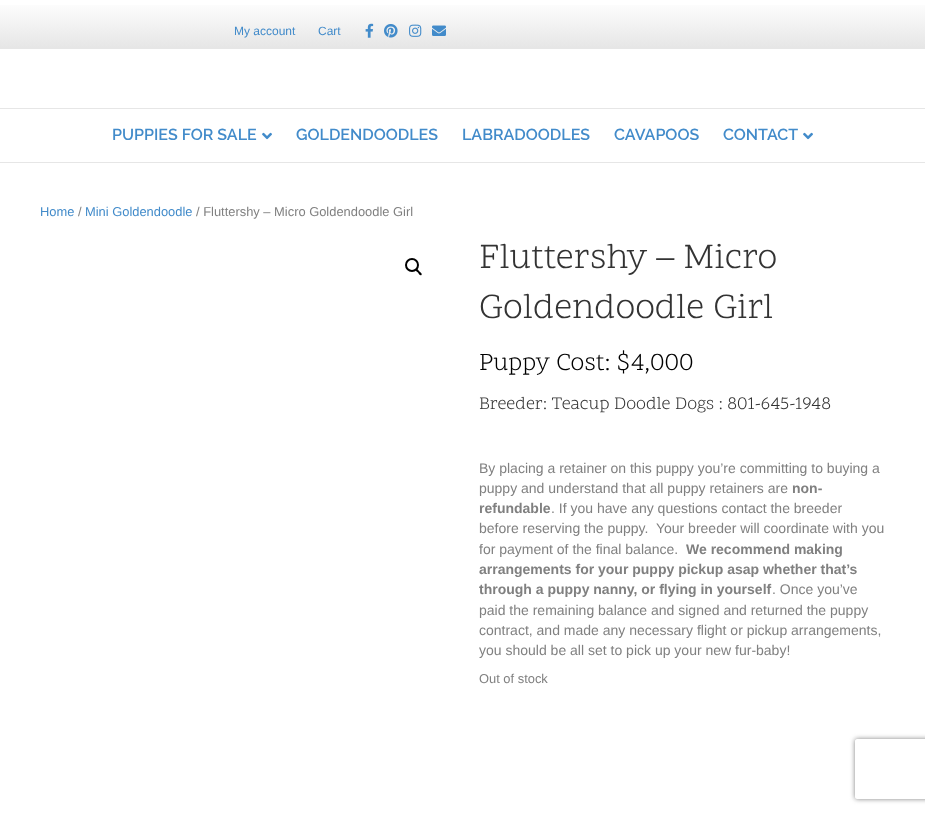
async function draw(canvas) {
  canvas.width = 925
  canvas.height = 813
  const ctx = canvas.getContext('2d')
  ctx.miterLimit = 4
  ctx.fontKerning = 'normal'
  async function loadImage(src) {
    const img = new Image()
    img.src = src
    await img.decode()
    return img
  }
  let gradient

  ctx.fillStyle = '#fff'
  ctx.fillRect(0, 0, 925, 813)
  gradient = ctx.createLinearGradient(463, 0, 463, 48)
  gradient.addColorStop(0, '#fff')
  gradient.addColorStop(1, '#e6e6e6')
  ctx.fillStyle = gradient
  ctx.fillRect(0, 5, 925, 43)
  ctx.fillStyle = '#e6e6e6'
  ctx.fillRect(0, 48, 925, 1)
  ctx.font = '12px Liberation Sans'
  ctx.fillStyle = '#428bca'
  ctx.fillText('My account', 234, 35)
  ctx.fillText('Cart', 318, 35)
  ctx.drawImage(await loadImage('image0.png'), 365, 23, 9, 15)
  ctx.drawImage(await loadImage('image1.png'), 384, 24, 14, 14)
  ctx.drawImage(await loadImage('image2.png'), 409, 24, 13, 13)
  ctx.drawImage(await loadImage('image3.png'), 432, 25, 14, 11)
  ctx.fillStyle = '#e6e6e6'
  ctx.fillRect(0, 108, 925, 1)
  ctx.fillRect(0, 162, 925, 1)
  ctx.font = '100 16px Raleway'
  ctx.fillStyle = '#428bca'
  ctx.fillText('PUPPIES FOR SALE', 112, 140)
  ctx.drawImage(await loadImage('image4.png'), 262, 132, 10, 8)
  ctx.fillText('GOLDENDOODLES', 296, 140)
  ctx.fillText('LABRADOODLES', 462, 140)
  ctx.fillText('CAVAPOOS', 614, 140)
  ctx.fillText('CONTACT', 723, 140)
  ctx.drawImage(await loadImage('image4.png'), 803, 132, 10, 8)
  ctx.font = '12.9px Liberation Sans'
  ctx.fillText('Home', 40, 216)
  ctx.fillStyle = '#808080'
  ctx.fillText('/', 78, 216)
  ctx.fillStyle = '#428bca'
  ctx.fillText('Mini Goldendoodle', 85, 216)
  ctx.fillStyle = '#808080'
  ctx.fillText('/ Fluttershy – Micro Goldendoodle Girl', 196, 216)
  ctx.beginPath()
  ctx.arc(412, 265, 6, 0, 2 * Math.PI)
  ctx.strokeStyle = '#000'
  ctx.lineWidth = 2
  ctx.stroke()
  ctx.fillStyle = '#000'
  ctx.beginPath()
  ctx.moveTo(416, 269)
  ctx.bezierCurveTo(417, 268, 418.5, 270.5, 419.5, 271.5)
  ctx.bezierCurveTo(420, 272, 422.5, 273.5, 421.5, 275)
  ctx.bezierCurveTo(420, 276, 418.5, 273.5, 418, 272.5)
  ctx.bezierCurveTo(417.5, 272, 414.5, 270.5, 416, 269)
  ctx.closePath()
  ctx.fill()
  ctx.font = '36px Scope One'
  ctx.fillStyle = '#333'
  ctx.fillText('Fluttershy – Micro', 479, 268)
  ctx.fillText('Goldendoodle Girl', 479, 318)
  ctx.font = '25px Scope One'
  ctx.fillStyle = '#000'
  ctx.fillText('Puppy Cost: $4,000', 479, 370)
  ctx.font = '18px Scope One'
  ctx.fillStyle = '#333'
  ctx.fillText('Breeder: Teacup Doodle Dogs : 801-645-1948', 479, 409)
  ctx.font = '14px Liberation Sans'
  ctx.fillStyle = '#808080'
  ctx.fillText('By placing a retainer on this puppy you’re committing to buying a', 479, 473)
  ctx.fillText('puppy and understand that all puppy retainers are', 479, 493)
  ctx.font = 'bold 14px Liberation Sans'
  ctx.fillText('non-', 792, 493)
  ctx.fillText('refundable', 479, 513)
  ctx.font = '14px Liberation Sans'
  ctx.fillText('. If you have any questions contact the breeder', 551, 513)
  ctx.fillText('before reserving the puppy.  Your breeder will coordinate with you', 479, 533)
  ctx.fillText('for payment of the final balance.', 479, 554)
  ctx.font = 'bold 14px Liberation Sans'
  ctx.fillText('We recommend making', 686, 554)
  ctx.fillText('arrangements for your puppy pickup asap whether that’s', 479, 574)
  ctx.fillText('through a puppy nanny, or flying in yourself', 479, 594)
  ctx.font = '14px Liberation Sans'
  ctx.fillText('. Once you’ve', 772, 594)
  ctx.fillText('paid the remaining balance and signed and returned the puppy', 479, 615)
  ctx.fillText('contract, and made any necessary flight or pickup arrangements,', 479, 635)
  ctx.fillText('you should be all set to pick up your new fur-baby!', 479, 655)
  ctx.font = '12.9px Liberation Sans'
  ctx.fillText('Out of stock', 479, 683)
  ctx.save()
  ctx.beginPath()
  ctx.moveTo(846, 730)
  ctx.lineTo(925, 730)
  ctx.lineTo(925, 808)
  ctx.lineTo(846, 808)
  ctx.closePath()
  ctx.moveTo(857, 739)
  ctx.lineTo(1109, 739)
  ctx.bezierCurveTo(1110, 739, 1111, 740, 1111, 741)
  ctx.lineTo(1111, 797)
  ctx.bezierCurveTo(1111, 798, 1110, 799, 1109, 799)
  ctx.lineTo(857, 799)
  ctx.bezierCurveTo(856, 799, 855, 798, 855, 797)
  ctx.lineTo(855, 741)
  ctx.bezierCurveTo(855, 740, 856, 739, 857, 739)
  ctx.closePath()
  ctx.clip('evenodd')
  ctx.filter = 'blur(2.5px)'
  ctx.beginPath()
  ctx.roundRect(855, 739, 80, 60, 2)
  ctx.fill()
  ctx.filter = 'none'
  ctx.restore()
}

draw(document.querySelector('canvas'))
